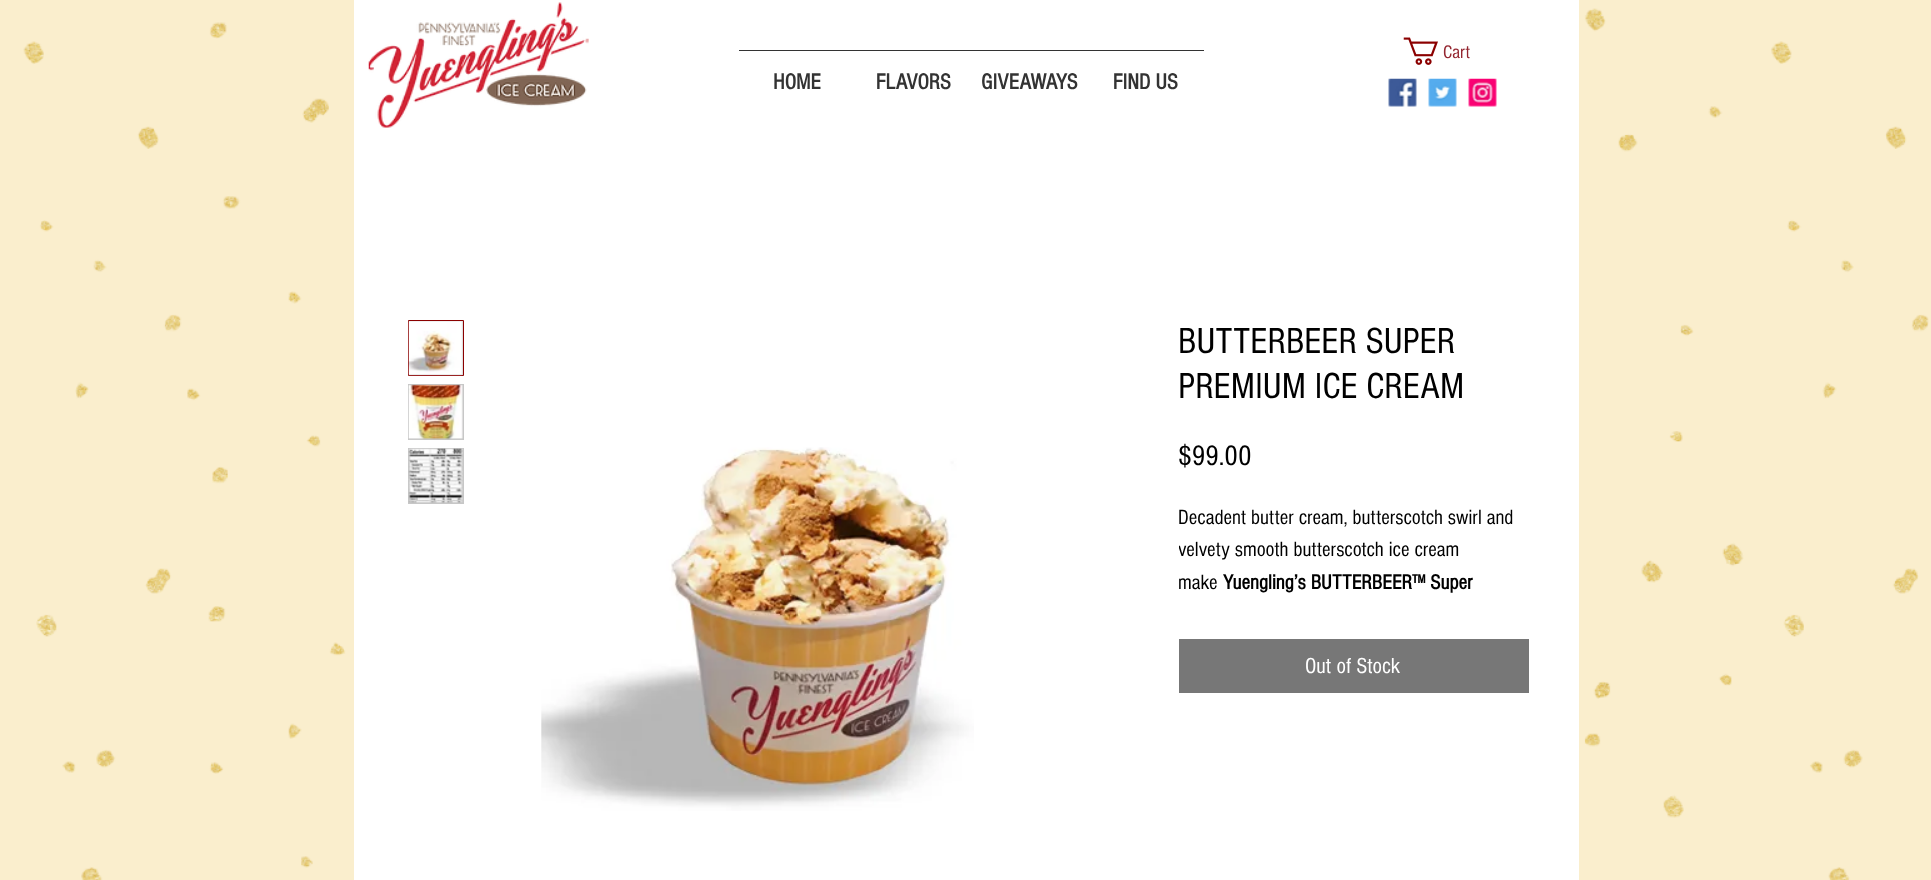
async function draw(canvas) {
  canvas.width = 1931
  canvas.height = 880
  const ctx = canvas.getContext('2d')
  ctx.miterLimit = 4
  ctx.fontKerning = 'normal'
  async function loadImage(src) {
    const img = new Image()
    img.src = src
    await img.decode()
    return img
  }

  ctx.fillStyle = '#faeecd'
  ctx.fillRect(0, 0, 1931, 880)
  ctx.drawImage(await loadImage('image0.png'), 23, 8, 1906, 872)
  ctx.fillStyle = '#fff'
  ctx.fillRect(354, 0, 1225, 880)
  ctx.drawImage(await loadImage('image1.png'), 368, 2, 221, 126)
  ctx.drawImage(await loadImage('image2.png'), 1403, 37, 35, 28)
  ctx.font = '19px "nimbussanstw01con"'
  ctx.fillStyle = '#942630'
  ctx.fillText('Cart', 1443, 58)
  ctx.fillStyle = '#333'
  ctx.fillRect(739, 50, 465, 1)
  ctx.font = 'bold 22.5px "nimbussanstw01con"'
  ctx.fillText('HOME', 773, 89)
  ctx.fillText('FLAVORS', 876, 89)
  ctx.fillText('GIVEAWAYS', 981, 89)
  ctx.fillText('FIND US', 1113, 89)
  ctx.drawImage(await loadImage('image3.png'), 1388, 78, 29, 29)
  ctx.drawImage(await loadImage('image4.png'), 1428, 78, 29, 29)
  ctx.drawImage(await loadImage('image5.png'), 1468, 78, 29, 29)
  ctx.fillStyle = '#c7c7c7'
  ctx.beginPath()
  ctx.rect(408.5, 320.5, 55, 55)
  ctx.fill()
  ctx.strokeStyle = '#8b0000'
  ctx.stroke()
  ctx.drawImage(await loadImage('image6.png'), 408, 321, 55, 55)
  ctx.fillRect(408, 384, 56, 56)
  ctx.drawImage(await loadImage('image7.png'), 408, 384, 55, 56)
  ctx.fillRect(408, 448, 56, 56)
  ctx.drawImage(await loadImage('image8.png'), 408, 448, 55, 55)
  ctx.drawImage(await loadImage('image9.png'), 541, 447, 433, 364)
  ctx.font = '37.5px "nimbussanstw01con"'
  ctx.fillStyle = '#000'
  ctx.fillText('BUTTERBEER SUPER', 1178, 353)
  ctx.fillText('PREMIUM ICE CREAM', 1178, 398)
  ctx.font = '29px "nimbussanstw01con"'
  ctx.fillText('$99.00', 1178, 465)
  ctx.font = '21.25px "nimbussanstw01con"'
  ctx.fillText('Decadent butter cream, butterscotch swirl and', 1178, 524)
  ctx.save()
  ctx.beginPath()
  ctx.rect(1179, 501, 350, 98)
  ctx.clip()
  ctx.fillText('velvety smooth butterscotch ice cream', 1178, 556)
  ctx.restore()
  ctx.fillText('make', 1178, 589)
  ctx.font = 'bold 21.25px "nimbussanstw01con"'
  ctx.fillText('Yuengling’s BUTTERBEER™ Super', 1223, 589)
  ctx.fillStyle = '#777'
  ctx.fillRect(1179, 639, 350, 54)
  ctx.font = '22.5px "nimbussanstw01con"'
  ctx.fillStyle = '#fff'
  ctx.fillText('Out of Stock', 1305, 673)
}

draw(document.querySelector('canvas'))
